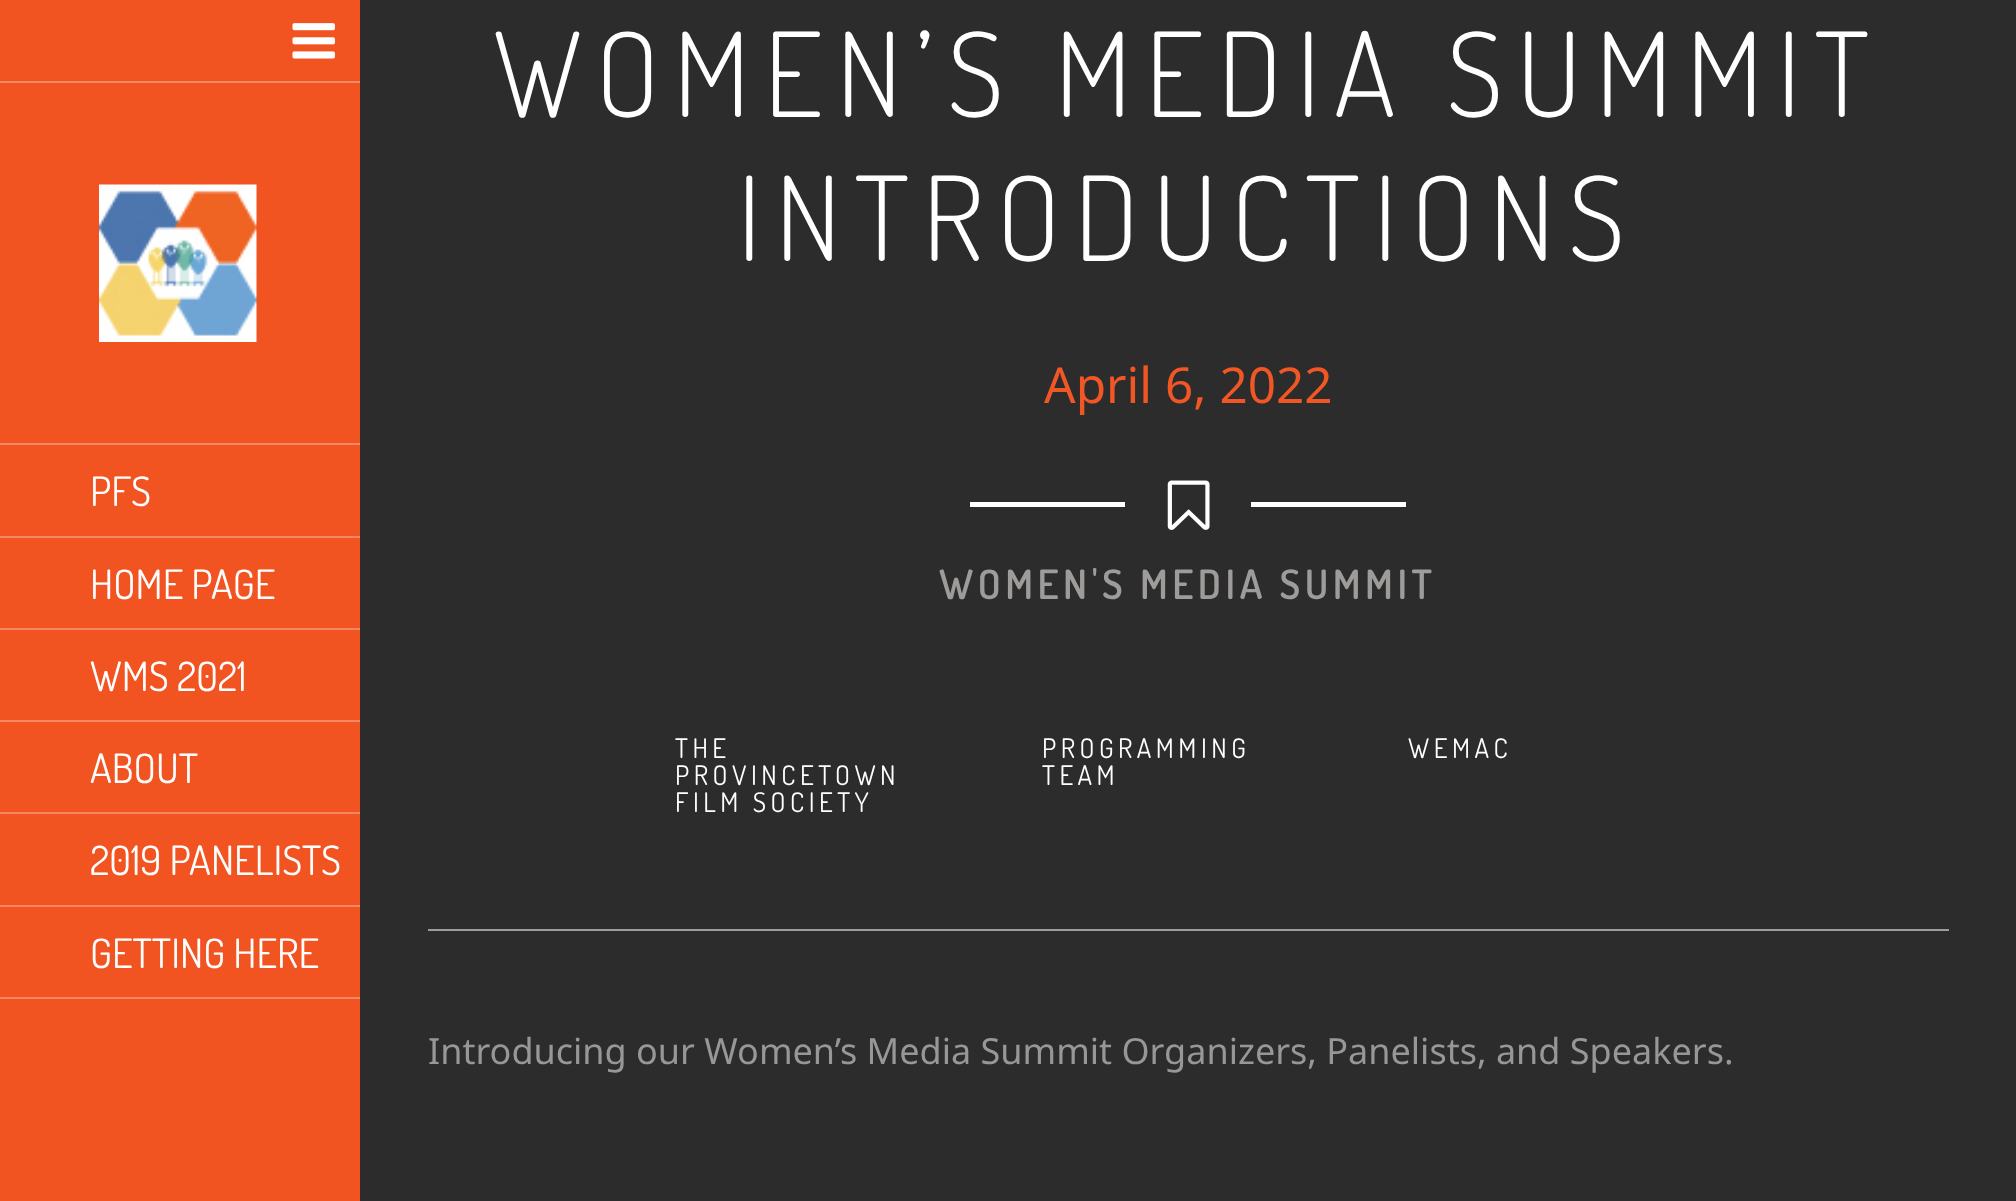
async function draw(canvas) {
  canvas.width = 2016
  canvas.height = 1201
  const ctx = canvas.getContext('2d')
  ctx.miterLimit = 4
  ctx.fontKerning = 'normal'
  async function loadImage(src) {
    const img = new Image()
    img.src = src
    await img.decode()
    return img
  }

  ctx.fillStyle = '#f25421'
  ctx.fillRect(0, 0, 2016, 1201)
  ctx.fillStyle = '#f58a67'
  ctx.fillRect(0, 81, 360, 2)
  ctx.drawImage(await loadImage('image0.png'), 292, 23, 43, 36)
  ctx.drawImage(await loadImage('image1.png'), 99, 184, 158, 158)
  ctx.fillRect(0, 443, 360, 2)
  ctx.fillStyle = '#f68764'
  ctx.fillRect(0, 536, 360, 2)
  ctx.font = '40.5px Dosis'
  ctx.fillStyle = '#fff'
  ctx.fillText('PFS', 90, 506)
  ctx.fillStyle = '#f68764'
  ctx.fillRect(0, 628, 360, 2)
  ctx.fillStyle = '#fff'
  ctx.fillText('HOME PAGE', 90, 599)
  ctx.fillStyle = '#f68764'
  ctx.fillRect(0, 720, 360, 2)
  ctx.fillStyle = '#fff'
  ctx.fillText('WMS 2021', 90, 691)
  ctx.fillStyle = '#f68764'
  ctx.fillRect(0, 812, 360, 2)
  ctx.fillStyle = '#fff'
  ctx.fillText('ABOUT', 90, 783)
  ctx.fillStyle = '#f68764'
  ctx.fillRect(0, 905, 360, 2)
  ctx.fillStyle = '#fff'
  ctx.fillText('2019 PANELISTS', 90, 875)
  ctx.fillStyle = '#f68764'
  ctx.fillRect(0, 997, 360, 2)
  ctx.fillStyle = '#fff'
  ctx.fillText('GETTING HERE', 90, 968)
  ctx.fillStyle = '#2c2c2c'
  ctx.fillRect(360, 0, 1656, 1201)
  ctx.letterSpacing = '13.5px'
  ctx.font = '300 117px Dosis'
  ctx.fillStyle = '#fff'
  ctx.fillText('WOMEN’S MEDIA SUMMIT', 493, 117)
  ctx.fillText('INTRODUCTIONS', 737, 261)
  ctx.letterSpacing = '0px'
  ctx.font = '49.5px Noto Sans'
  ctx.fillStyle = '#f15725'
  ctx.fillText('April 6, 2022', 1044, 403)
  ctx.fillStyle = '#fff'
  ctx.fillRect(970, 502, 436, 5)
  ctx.fillStyle = '#2c2c2c'
  ctx.fillRect(1125, 502, 126, 5)
  ctx.drawImage(await loadImage('image2.png'), 1167, 480, 43, 50)
  ctx.letterSpacing = '4.5px'
  ctx.font = '600 40.5px Dosis'
  ctx.fillStyle = '#9e9c9a'
  ctx.fillText('WOMEN\'S MEDIA SUMMIT', 939, 599)
  ctx.fillStyle = '#9d9c9a'
  ctx.fillRect(428, 929, 1521, 2)
  ctx.font = '27px Dosis'
  ctx.fillStyle = '#fff'
  ctx.fillText('THE', 675, 758)
  ctx.fillText('PROVINCETOWN', 675, 785)
  ctx.fillText('FILM SOCIETY', 675, 812)
  ctx.fillText('PROGRAMMING', 1042, 758)
  ctx.fillText('TEAM', 1042, 785)
  ctx.fillText('WEMAC', 1408, 758)
  ctx.letterSpacing = '0px'
  ctx.font = '36px Noto Sans'
  ctx.fillStyle = '#979797'
  ctx.fillText('Introducing our Women’s Media Summit Organizers, Panelists, and Speakers.', 428, 1064)
}

draw(document.querySelector('canvas'))
